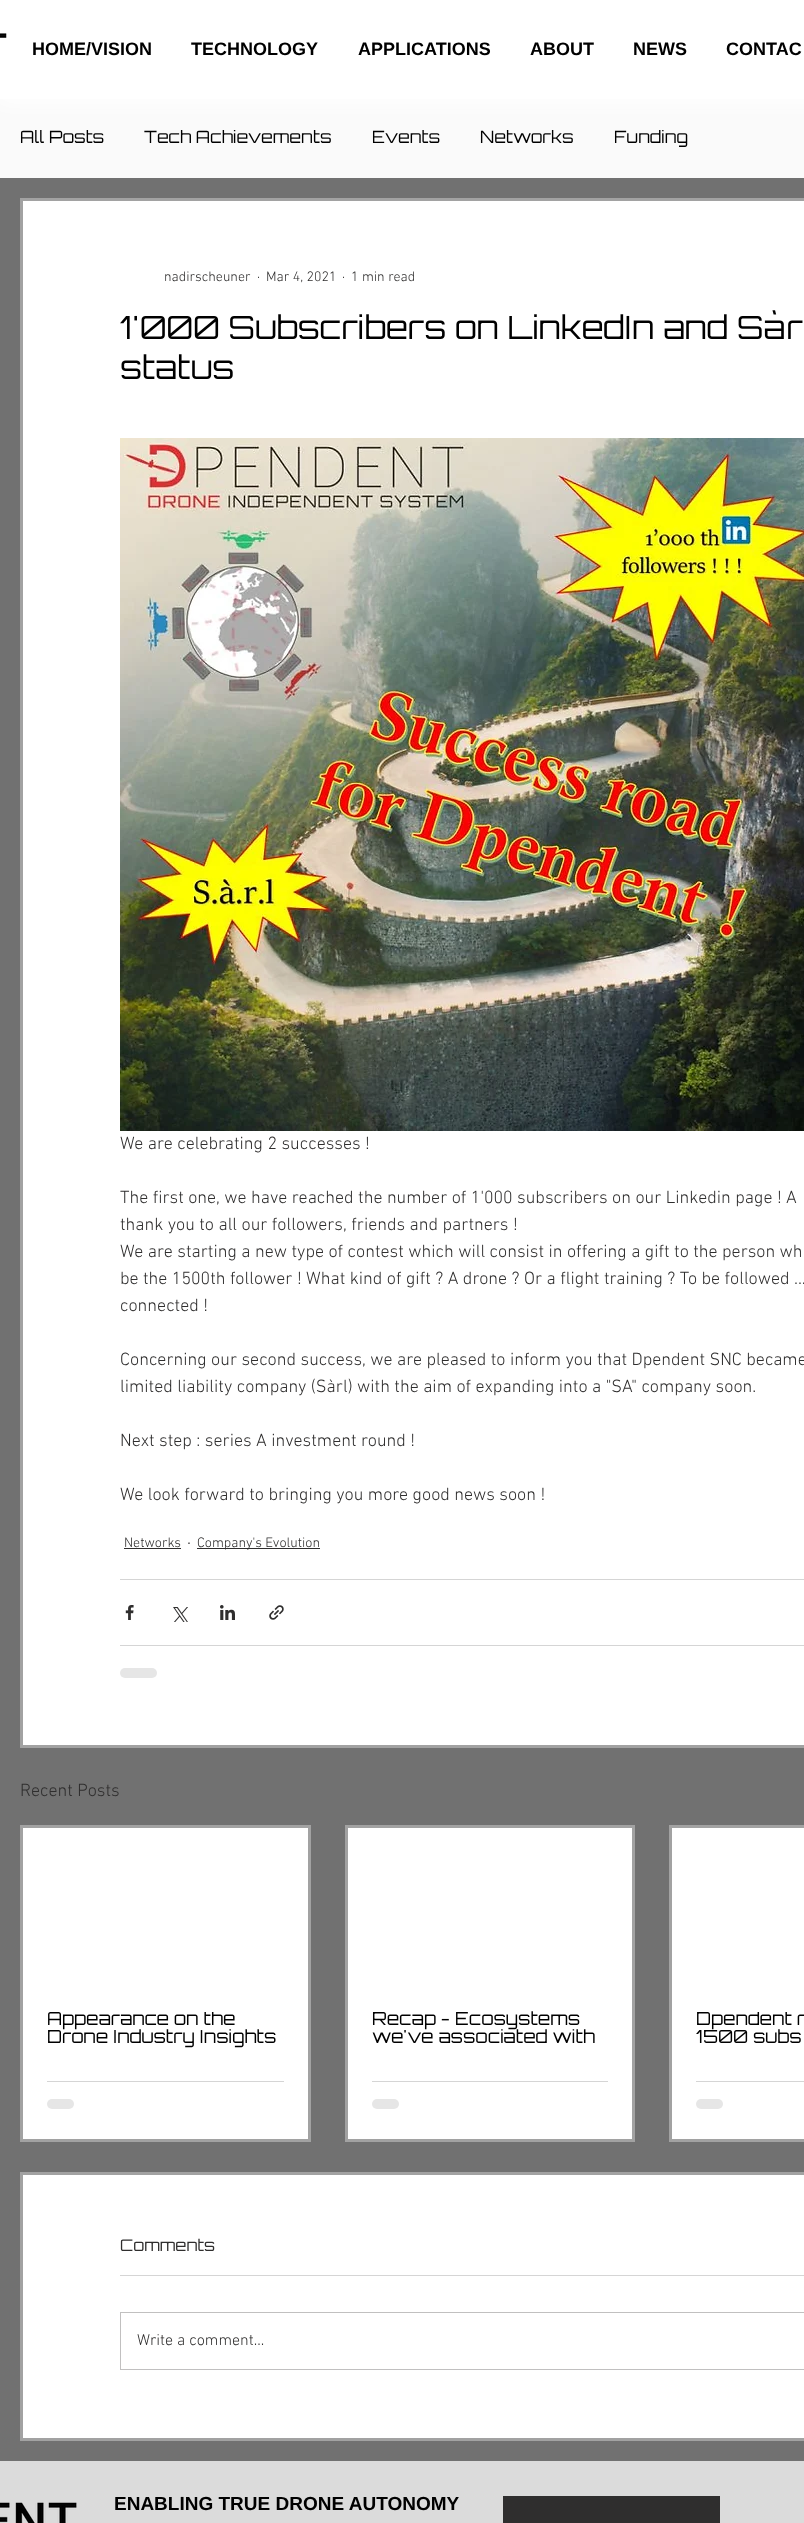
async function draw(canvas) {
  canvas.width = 804
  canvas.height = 2523
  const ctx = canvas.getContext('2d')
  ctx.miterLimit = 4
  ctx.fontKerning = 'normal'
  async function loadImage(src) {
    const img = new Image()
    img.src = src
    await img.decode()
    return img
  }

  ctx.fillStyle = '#717171'
  ctx.fillRect(0, 0, 804, 2523)
  ctx.fillStyle = '#fafafa'
  ctx.fillRect(0, 99, 804, 79)
  ctx.fillStyle = '#fff'
  ctx.filter = 'blur(10.5px)'
  ctx.beginPath()
  ctx.rect(-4, -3, 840, 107)
  ctx.fill()
  ctx.filter = 'none'
  ctx.fillRect(0, 0, 804, 99)
  ctx.drawImage(await loadImage('image0.png'), 0, 33, 7, 5)
  ctx.font = 'bold 18px Liberation Sans'
  ctx.fillStyle = '#000'
  ctx.fillText('HOME/VISION', 32, 55)
  ctx.fillText('TECHNOLOGY', 191, 55)
  ctx.fillText('APPLICATIONS', 358, 55)
  ctx.fillText('ABOUT', 530, 55)
  ctx.fillText('NEWS', 633, 55)
  ctx.fillText('CONTAC', 726, 55)
  ctx.font = '17px Orbitron'
  ctx.fillText('All Posts', 20, 143)
  ctx.fillText('Tech Achievements', 144, 143)
  ctx.fillText('Events', 372, 143)
  ctx.fillText('Networks', 480, 143)
  ctx.fillText('Funding', 614, 143)
  ctx.fillStyle = '#fff'
  ctx.beginPath()
  ctx.rect(21.5, 199.5, 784, 1547)
  ctx.fill()
  ctx.strokeStyle = '#a2a2a2'
  ctx.lineWidth = 3
  ctx.stroke()
  ctx.font = '300 14px "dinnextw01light"'
  ctx.fillStyle = '#2f2e2e'
  ctx.fillText('nadirscheuner', 164, 281)
  ctx.fillText('·', 257, 281)
  ctx.fillText('Mar 4, 2021', 266, 281)
  ctx.fillText('·', 342, 281)
  ctx.fillText('1 min read', 351, 281)
  ctx.font = '32px Orbitron'
  ctx.fillStyle = '#000'
  ctx.fillText('1\'000 Subscribers on LinkedIn and Sàr', 120, 339)
  ctx.fillText('status', 120, 379)
  ctx.drawImage(await loadImage('image1.png'), 120, 438, 684, 693)
  ctx.font = '300 18px "dinnextw01light"'
  ctx.fillStyle = '#2f2e2e'
  ctx.fillText('We are celebrating 2 successes !', 120, 1149)
  ctx.fillText('The first one, we have reached the number of 1\'000 subscribers on our Linkedin page ! A', 120, 1203)
  ctx.fillText('thank you to all our followers, friends and partners !', 120, 1230)
  ctx.fillText('We are starting a new type of contest which will consist in offering a gift to the person wh', 120, 1257)
  ctx.fillText('be the 1500th follower ! What kind of gift ? A drone ? Or a flight training ? To be followed ...', 120, 1284)
  ctx.fillText('connected !', 120, 1311)
  ctx.fillText('Concerning our second success, we are pleased to inform you that Dpendent SNC became', 120, 1365)
  ctx.fillText('limited liability company (Sàrl) with the aim of expanding into a "SA" company soon.', 120, 1392)
  ctx.fillText('Next step : series A investment round !', 120, 1446)
  ctx.fillText('We look forward to bringing you more good news soon !', 120, 1500)
  ctx.font = '300 14px "dinnextw01light"'
  ctx.fillText('Networks', 124, 1547)
  ctx.fillRect(124, 1548, 57, 1)
  ctx.font = '300 18px "dinnextw01light"'
  ctx.fillText('·', 187, 1548)
  ctx.fillRect(197, 1548, 123, 1)
  ctx.font = '300 14px "dinnextw01light"'
  ctx.fillText('Company\'s Evolution', 197, 1547)
  ctx.fillStyle = '#d5d5d5'
  ctx.fillRect(120, 1579, 684, 1)
  ctx.drawImage(await loadImage('image2.png'), 125, 1605, 9, 15)
  ctx.drawImage(await loadImage('image3.png'), 173, 1607, 15, 15)
  ctx.drawImage(await loadImage('image4.png'), 220, 1605, 15, 15)
  ctx.drawImage(await loadImage('image5.png'), 269, 1605, 15, 15)
  ctx.fillRect(120, 1645, 684, 1)
  ctx.fillStyle = '#e6e6e6'
  ctx.beginPath()
  ctx.roundRect(120, 1668, 37, 10, 5)
  ctx.fill()
  ctx.font = '300 18px "dinnextw01light"'
  ctx.fillStyle = '#2f2e2e'
  ctx.fillText('Recent Posts', 20, 1796)
  ctx.fillStyle = '#fff'
  ctx.beginPath()
  ctx.rect(21.5, 1826.5, 288, 314)
  ctx.fill()
  ctx.stroke()
  ctx.save()
  ctx.beginPath()
  ctx.rect(47, 2012, 237, 36)
  ctx.clip()
  ctx.font = '18px Orbitron'
  ctx.fillStyle = '#000'
  ctx.fillText('Appearance on the', 47, 2025)
  ctx.restore()
  ctx.font = '18px Orbitron'
  ctx.fillStyle = '#000'
  ctx.fillText('Drone Industry Insights', 47, 2043)
  ctx.fillStyle = '#d5d5d5'
  ctx.fillRect(47, 2081, 237, 1)
  ctx.fillStyle = '#e6e6e6'
  ctx.beginPath()
  ctx.roundRect(47, 2099, 27, 10, 5)
  ctx.fill()
  ctx.fillStyle = '#fff'
  ctx.beginPath()
  ctx.rect(346.5, 1826.5, 287, 314)
  ctx.fill()
  ctx.stroke()
  ctx.fillStyle = '#000'
  ctx.fillText('Recap - Ecosystems', 372, 2025)
  ctx.fillText('we\'ve associated with', 372, 2043)
  ctx.fillStyle = '#d5d5d5'
  ctx.fillRect(372, 2081, 236, 1)
  ctx.fillStyle = '#e6e6e6'
  ctx.beginPath()
  ctx.roundRect(372, 2099, 27, 10, 5)
  ctx.fill()
  ctx.fillStyle = '#fff'
  ctx.beginPath()
  ctx.rect(670.5, 1826.5, 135, 314)
  ctx.fill()
  ctx.stroke()
  ctx.save()
  ctx.beginPath()
  ctx.rect(696, 2012, 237, 36)
  ctx.clip()
  ctx.fillStyle = '#000'
  ctx.fillText('Dpendent r', 696, 2025)
  ctx.restore()
  ctx.fillStyle = '#000'
  ctx.fillText('1500 subs', 696, 2043)
  ctx.fillStyle = '#d5d5d5'
  ctx.fillRect(696, 2081, 108, 1)
  ctx.fillStyle = '#e6e6e6'
  ctx.beginPath()
  ctx.roundRect(696, 2099, 27, 10, 5)
  ctx.fill()
  ctx.fillStyle = '#fff'
  ctx.beginPath()
  ctx.rect(21.5, 2173.5, 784, 266)
  ctx.fill()
  ctx.stroke()
  ctx.font = '16px Orbitron'
  ctx.fillStyle = '#2f2e2e'
  ctx.fillText('Comments', 120, 2251)
  ctx.fillStyle = '#d5d5d5'
  ctx.fillRect(120, 2275, 684, 1)
  ctx.strokeStyle = '#c1c0c0'
  ctx.lineWidth = 1
  ctx.strokeRect(120.5, 2312.5, 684, 57)
  ctx.font = '300 16px "dinnextw01light"'
  ctx.fillStyle = '#2f2e2e'
  ctx.fillText('Write a comment...', 137, 2345)
  ctx.fillStyle = '#dbdbdb'
  ctx.fillRect(0, 2461, 804, 62)
  ctx.drawImage(await loadImage('image6.png'), 0, 2502, 77, 21)
  ctx.font = 'bold 19px Liberation Sans'
  ctx.fillStyle = '#000'
  ctx.fillText('ENABLING TRUE DRONE AUTONOMY', 114, 2510)
  ctx.fillStyle = '#2f2e2e'
  ctx.fillRect(503, 2496, 217, 27)
}

draw(document.querySelector('canvas'))
